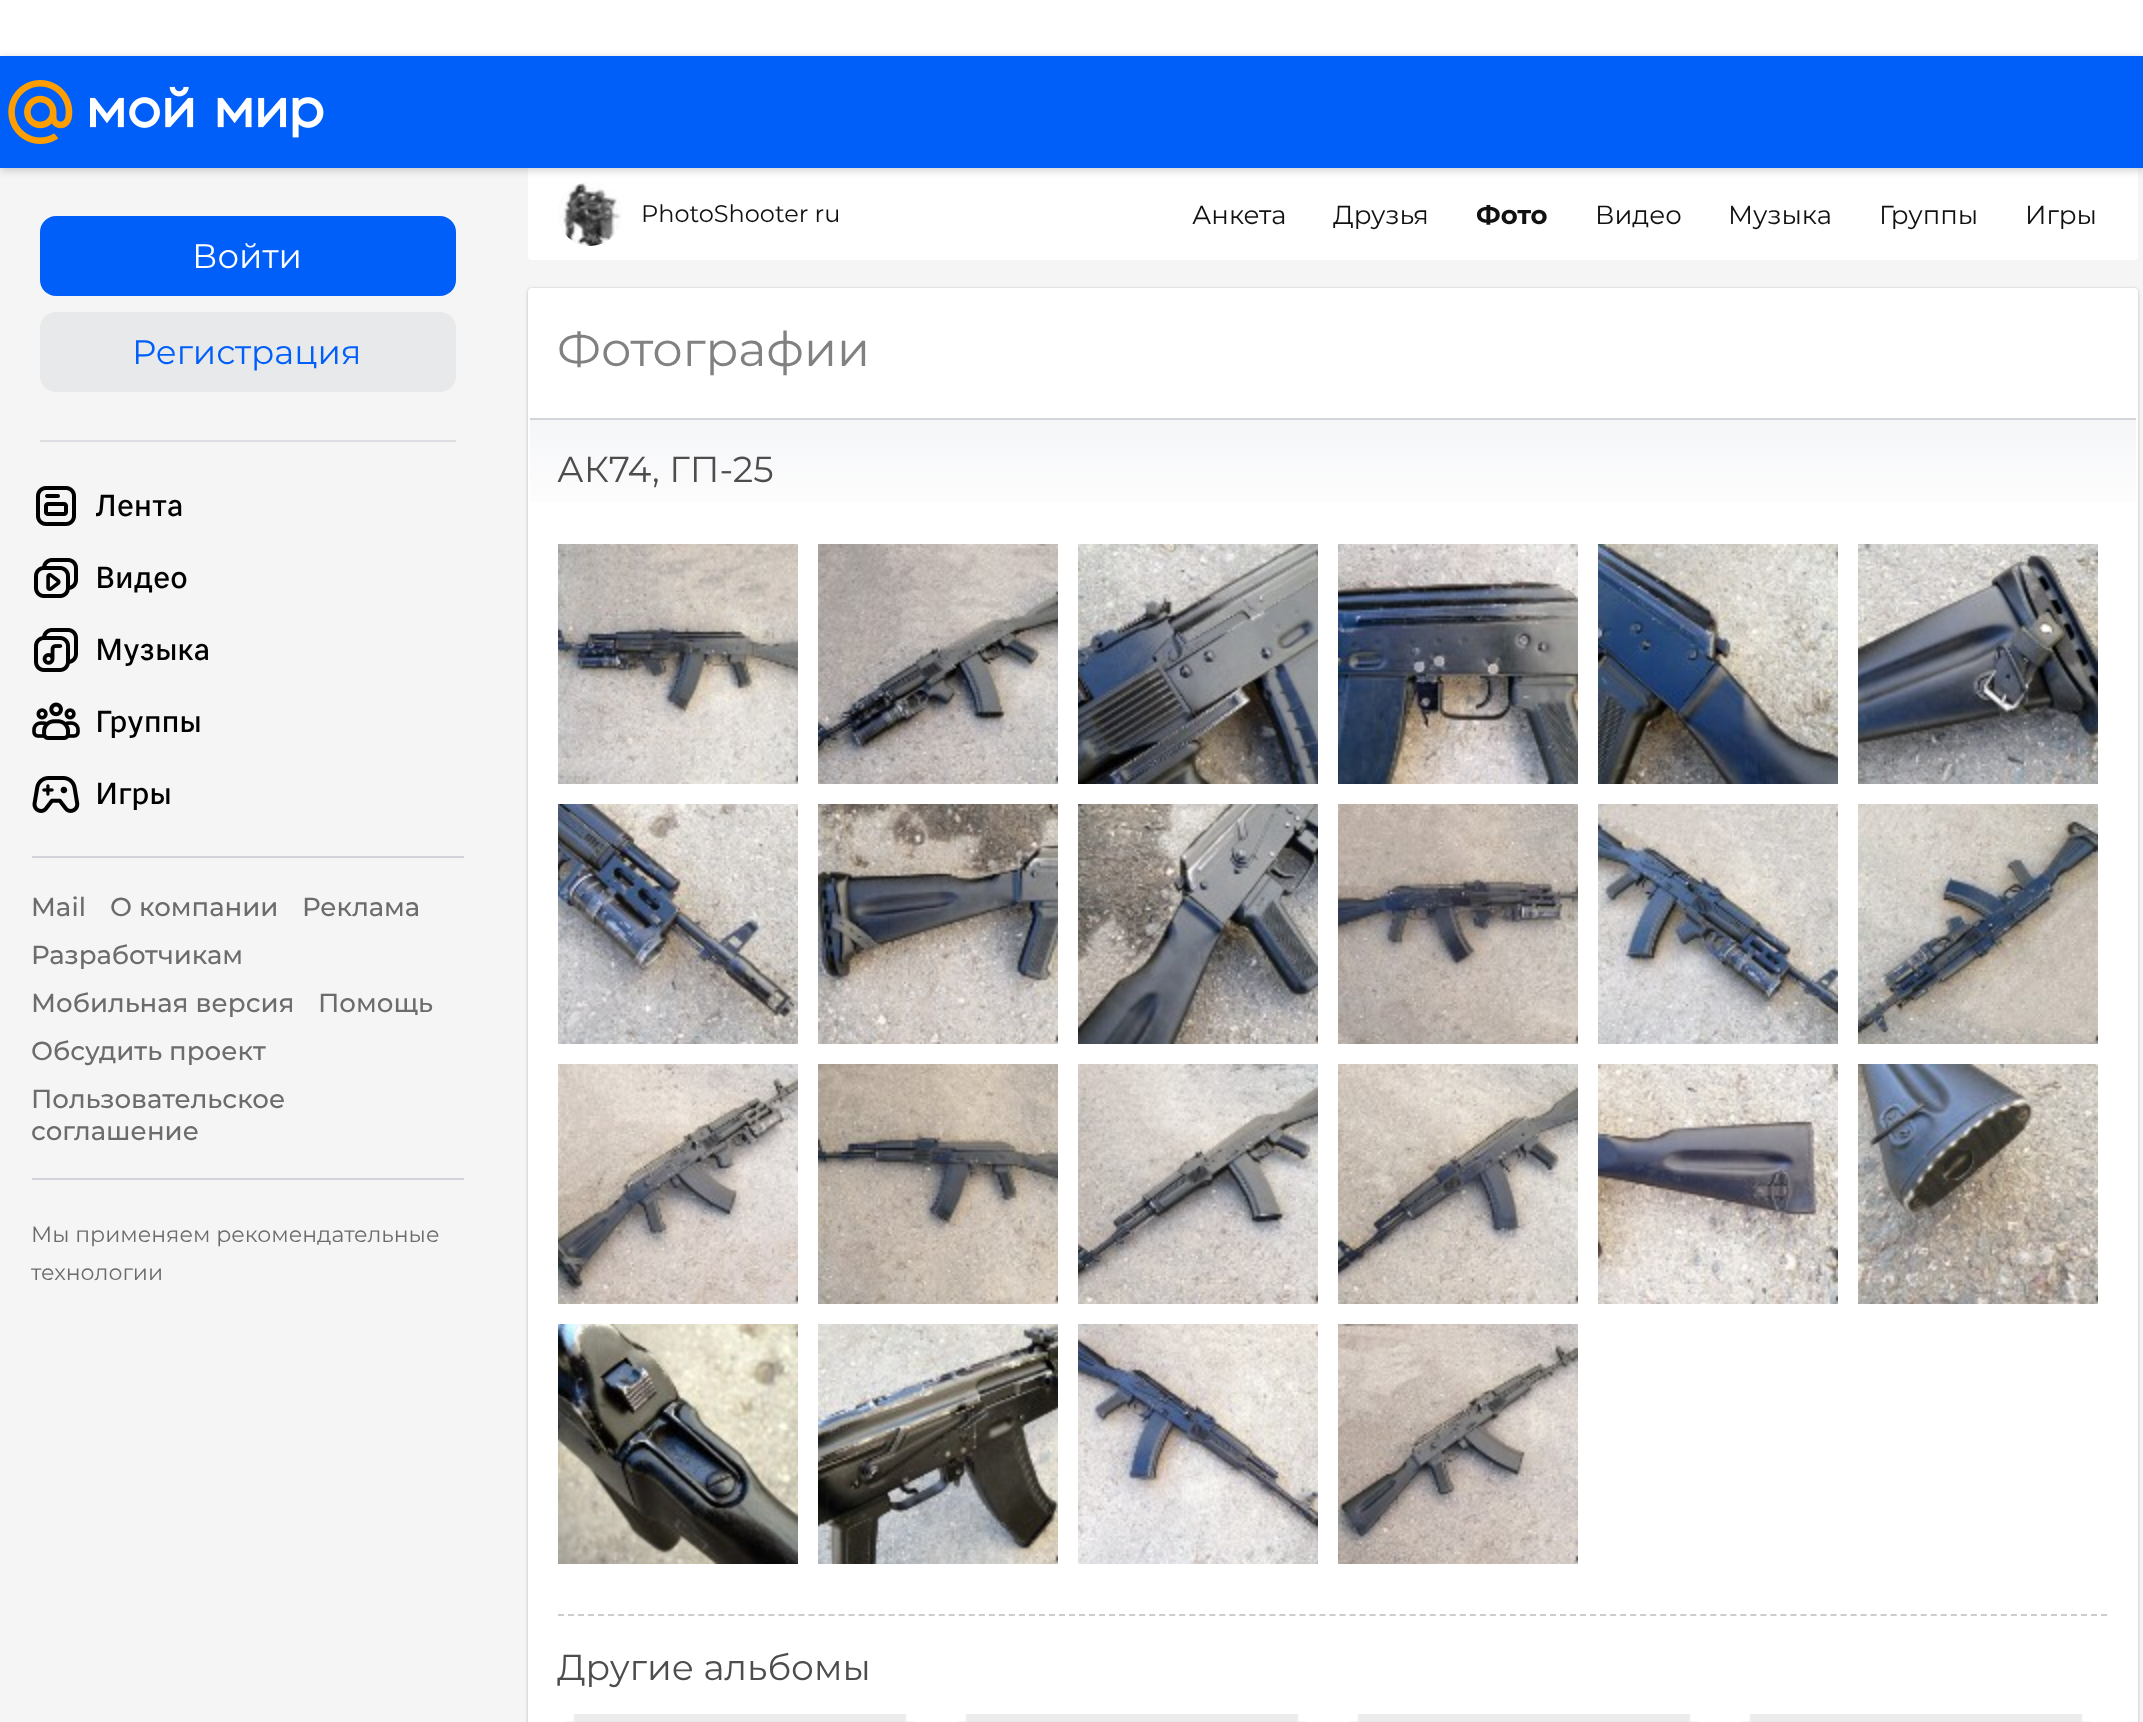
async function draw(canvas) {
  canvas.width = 2143
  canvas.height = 1722
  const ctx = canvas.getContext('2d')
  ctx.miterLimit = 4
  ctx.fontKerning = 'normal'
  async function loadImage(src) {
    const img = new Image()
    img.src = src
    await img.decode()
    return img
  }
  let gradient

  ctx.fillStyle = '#f5f5f5'
  ctx.fillRect(0, 0, 2143, 1722)
  ctx.fillStyle = '#fff'
  ctx.fillRect(0, 0, 2143, 56)
  ctx.beginPath()
  ctx.roundRect(528, 168, 1610, 92, [0, 0, 4, 4])
  ctx.fill()
  ctx.fillStyle = '#f0f0f0'
  ctx.beginPath()
  ctx.arc(590, 214, 32, 0, 2 * Math.PI)
  ctx.fill()
  ctx.drawImage(await loadImage('image6.png'), 558, 182, 64, 64)
  ctx.fillStyle = '#00000033'
  ctx.filter = 'blur(4px)'
  ctx.beginPath()
  ctx.rect(0, 58, 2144, 112)
  ctx.fill()
  ctx.filter = 'none'
  ctx.fillStyle = '#015ff9'
  ctx.fillRect(0, 56, 2143, 112)
  ctx.drawImage(await loadImage('image0.png'), 8, 80, 316, 64)
  ctx.beginPath()
  ctx.roundRect(40, 216, 416, 80, 16)
  ctx.fill()
  ctx.font = '34px Montserrat'
  ctx.fillStyle = '#fff'
  ctx.fillText('Войти', 192, 268)
  ctx.fillStyle = '#e8e9eb'
  ctx.beginPath()
  ctx.roundRect(40, 312, 416, 80, 16)
  ctx.fill()
  ctx.fillStyle = '#015ff9'
  ctx.fillText('Регистрация', 132, 364)
  ctx.fillStyle = '#dddee3'
  ctx.fillRect(40, 440, 416, 2)
  ctx.drawImage(await loadImage('image1.png'), 36, 486, 40, 40)
  ctx.save()
  ctx.beginPath()
  ctx.rect(96, 488, 220, 36)
  ctx.clip()
  ctx.letterSpacing = '-0.25px'
  ctx.font = '500 30px "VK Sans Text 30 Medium"'
  ctx.fillStyle = '#000'
  ctx.fillText('Лента', 95, 516)
  ctx.restore()
  ctx.drawImage(await loadImage('image2.png'), 34, 558, 44, 40)
  ctx.letterSpacing = '-0.25px'
  ctx.font = '500 30px "VK Sans Text 30 Medium"'
  ctx.fillStyle = '#000'
  ctx.fillText('Видео', 95, 588)
  ctx.drawImage(await loadImage('image3.png'), 34, 628, 44, 44)
  ctx.fillText('Музыка', 95, 660)
  ctx.drawImage(await loadImage('image4.png'), 32, 702, 48, 38)
  ctx.fillText('Группы', 95, 732)
  ctx.drawImage(await loadImage('image5.png'), 32, 776, 48, 37)
  ctx.fillText('Игры', 95, 804)
  ctx.fillStyle = '#d2d3da'
  ctx.fillRect(32, 856, 432, 2)
  ctx.letterSpacing = '0px'
  ctx.font = '500 26px Montserrat'
  ctx.fillStyle = '#6c6c6c'
  ctx.fillText('Mail', 31, 916)
  ctx.fillText('О компании', 110, 916)
  ctx.fillText('Реклама', 302, 916)
  ctx.fillText('Разработчикам', 31, 964)
  ctx.fillText('Мобильная версия', 31, 1012)
  ctx.fillText('Помощь', 318, 1012)
  ctx.fillText('Обсудить проект', 31, 1060)
  ctx.fillText('Пользовательское', 31, 1108)
  ctx.fillText('соглашение', 31, 1140)
  ctx.fillStyle = '#d2d3da'
  ctx.fillRect(32, 1178, 432, 2)
  ctx.font = '22px Montserrat'
  ctx.fillStyle = '#6c6c6c'
  ctx.fillText('Мы применяем рекомендательные', 31, 1242)
  ctx.fillText('технологии', 31, 1280)
  ctx.fillStyle = '#0000001f'
  ctx.filter = 'blur(2px)'
  ctx.beginPath()
  ctx.roundRect(528, 290, 1610, 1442, 4)
  ctx.fill()
  ctx.filter = 'none'
  ctx.fillStyle = '#00000026'
  ctx.filter = 'blur(1px)'
  ctx.beginPath()
  ctx.roundRect(528, 288, 1610, 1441, 4)
  ctx.fill()
  ctx.filter = 'none'
  ctx.fillStyle = '#fff'
  ctx.beginPath()
  ctx.roundRect(528, 288, 1610, 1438, 4)
  ctx.fill()
  ctx.font = '24px Montserrat'
  ctx.fillStyle = '#111'
  ctx.fillText('PhotoShooter ru', 641, 222)
  ctx.font = '26px Montserrat'
  ctx.fillText('Анкета', 1192, 224)
  ctx.fillText('Друзья', 1333, 224)
  ctx.font = 'bold 26px Montserrat'
  ctx.fillText('Фото', 1476, 224)
  ctx.font = '26px Montserrat'
  ctx.fillText('Видео', 1595, 224)
  ctx.fillText('Музыка', 1728, 224)
  ctx.fillText('Группы', 1879, 224)
  ctx.fillText('Игры', 2025, 224)
  ctx.font = '48px Montserrat'
  ctx.fillStyle = '#818181'
  ctx.fillText('Фотографии', 557, 366)
  gradient = ctx.createLinearGradient(1333, 420, 1333, 530)
  gradient.addColorStop(0, '#f5f6f8')
  gradient.addColorStop(1, '#fff')
  ctx.fillStyle = gradient
  ctx.fillRect(530, 420, 1606, 82)
  ctx.fillStyle = '#d2d5d9'
  ctx.fillRect(530, 418, 1606, 2)
  ctx.font = '36px Montserrat'
  ctx.fillStyle = '#4d4d4d'
  ctx.fillText('АК74, ГП-25', 557, 482)
  ctx.drawImage(await loadImage('image7.png'), 558, 544, 240, 240)
  ctx.drawImage(await loadImage('image8.png'), 818, 544, 240, 240)
  ctx.drawImage(await loadImage('image9.png'), 1078, 544, 240, 240)
  ctx.drawImage(await loadImage('image10.png'), 1338, 544, 240, 240)
  ctx.drawImage(await loadImage('image11.png'), 1598, 544, 240, 240)
  ctx.drawImage(await loadImage('image12.png'), 1858, 544, 240, 240)
  ctx.drawImage(await loadImage('image13.png'), 558, 804, 240, 240)
  ctx.drawImage(await loadImage('image14.png'), 818, 804, 240, 240)
  ctx.drawImage(await loadImage('image15.png'), 1078, 804, 240, 240)
  ctx.drawImage(await loadImage('image16.png'), 1338, 804, 240, 240)
  ctx.drawImage(await loadImage('image17.png'), 1598, 804, 240, 240)
  ctx.drawImage(await loadImage('image18.png'), 1858, 804, 240, 240)
  ctx.drawImage(await loadImage('image19.png'), 558, 1064, 240, 240)
  ctx.drawImage(await loadImage('image20.png'), 818, 1064, 240, 240)
  ctx.drawImage(await loadImage('image21.png'), 1078, 1064, 240, 240)
  ctx.drawImage(await loadImage('image22.png'), 1338, 1064, 240, 240)
  ctx.drawImage(await loadImage('image23.png'), 1598, 1064, 240, 240)
  ctx.drawImage(await loadImage('image24.png'), 1858, 1064, 240, 240)
  ctx.drawImage(await loadImage('image25.png'), 558, 1324, 240, 240)
  ctx.drawImage(await loadImage('image26.png'), 818, 1324, 240, 240)
  ctx.drawImage(await loadImage('image27.png'), 1078, 1324, 240, 240)
  ctx.drawImage(await loadImage('image28.png'), 1338, 1324, 240, 240)
  ctx.beginPath()
  ctx.moveTo(558, 1615)
  ctx.lineTo(2108, 1615)
  ctx.strokeStyle = '#ccc'
  ctx.lineWidth = 2
  ctx.setLineDash([6, 4.02])
  ctx.stroke()
  ctx.fillText('Другие альбомы', 557, 1680)
  ctx.drawImage(await loadImage('image29.png'), 566, 1714, 348, 8)
  ctx.drawImage(await loadImage('image30.png'), 950, 1714, 364, 8)
  ctx.drawImage(await loadImage('image30.png'), 1342, 1714, 364, 8)
  ctx.drawImage(await loadImage('image30.png'), 1734, 1714, 364, 8)
}

draw(document.querySelector('canvas'))
